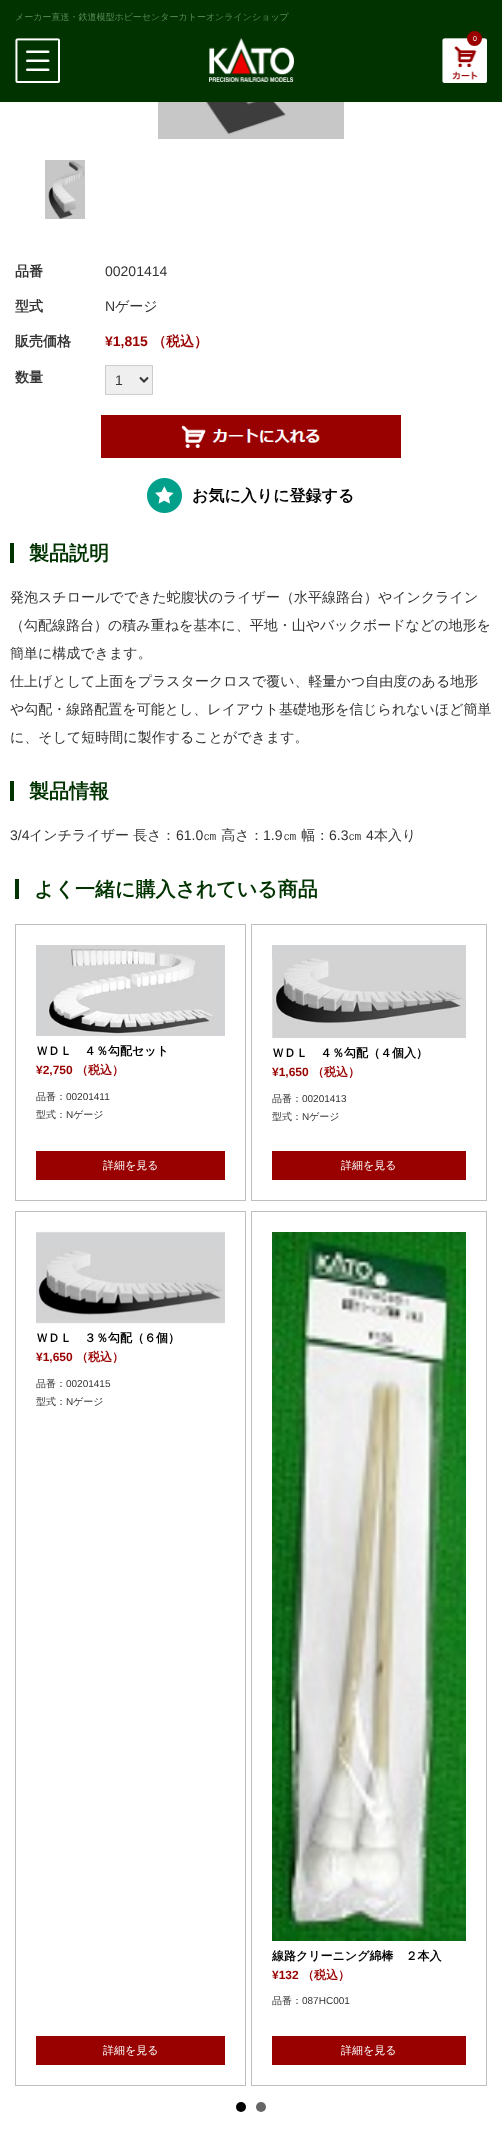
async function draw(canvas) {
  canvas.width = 502
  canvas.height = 2147
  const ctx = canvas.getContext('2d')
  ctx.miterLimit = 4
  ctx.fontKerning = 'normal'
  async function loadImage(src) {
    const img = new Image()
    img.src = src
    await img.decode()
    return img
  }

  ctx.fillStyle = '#fff'
  ctx.fillRect(0, 0, 502, 2147)
  ctx.fillStyle = '#030'
  ctx.fillRect(0, 0, 502, 102)
  ctx.font = '500 9px WenQuanYi Zen Hei'
  ctx.fillStyle = '#5b895b'
  ctx.fillText('メーカー直送・鉄道模型ホビーセンターカトーオンラインショップ', 15, 20)
  ctx.drawImage(await loadImage('image0.png'), 15, 38, 45, 45)
  ctx.drawImage(await loadImage('image1.png'), 209, 38, 85, 44)
  ctx.drawImage(await loadImage('image2.png'), 442, 38, 45, 45)
  ctx.fillStyle = '#900'
  ctx.beginPath()
  ctx.arc(474.5, 38.5, 7.5, 0, 2 * Math.PI)
  ctx.fill()
  ctx.font = '7px Liberation Sans'
  ctx.fillStyle = '#fff'
  ctx.fillText('0', 473, 41)
  ctx.drawImage(await loadImage('image3.png'), 158, 102, 186, 37)
  ctx.drawImage(await loadImage('image4.png'), 45, 160, 40, 59)
  ctx.font = 'bold 14px WenQuanYi Zen Hei'
  ctx.fillStyle = '#333'
  ctx.fillText('品番', 15, 276)
  ctx.font = '14px Liberation Sans'
  ctx.fillText('00201414', 105, 276)
  ctx.font = 'bold 14px WenQuanYi Zen Hei'
  ctx.fillText('型式', 15, 311)
  ctx.font = '14px Liberation Sans'
  ctx.fillText('N', 105, 311)
  ctx.font = '500 14px WenQuanYi Zen Hei'
  ctx.fillText('ゲージ', 115, 311)
  ctx.font = 'bold 14px WenQuanYi Zen Hei'
  ctx.fillText('販売価格', 15, 346)
  ctx.font = 'bold 14px Liberation Sans'
  ctx.fillStyle = '#900'
  ctx.fillText('¥1,815', 105, 346)
  ctx.font = 'bold 14px WenQuanYi Zen Hei'
  ctx.fillText('（税込）', 152, 346)
  ctx.fillStyle = '#333'
  ctx.fillText('数量', 15, 382)
  ctx.fillStyle = '#efefef'
  ctx.beginPath()
  ctx.rect(105.5, 365.5, 47, 29)
  ctx.fill()
  ctx.strokeStyle = '#ccc'
  ctx.stroke()
  ctx.beginPath()
  ctx.moveTo(140, 377.5)
  ctx.lineTo(144, 381.5)
  ctx.lineTo(148, 377.5)
  ctx.strokeStyle = '#333'
  ctx.lineWidth = 2
  ctx.stroke()
  ctx.font = '14px Liberation Sans'
  ctx.fillStyle = '#333'
  ctx.fillText('1', 115, 385)
  ctx.drawImage(await loadImage('image5.png'), 101, 415, 300, 43)
  ctx.drawImage(await loadImage('image6.png'), 147, 478, 35, 35)
  ctx.font = 'bold 16px WenQuanYi Zen Hei'
  ctx.fillStyle = '#000'
  ctx.fillText('お気に入りに登録する', 192, 501)
  ctx.fillStyle = '#030'
  ctx.fillRect(10, 543, 4, 20)
  ctx.font = 'bold 20px WenQuanYi Zen Hei'
  ctx.fillText('製品説明', 29, 560)
  ctx.font = '500 14px WenQuanYi Zen Hei'
  ctx.fillStyle = '#333'
  ctx.fillText('発泡スチロールでできた蛇腹状のライザー（水平線路台）やインクライン', 10, 602)
  ctx.fillText('（勾配線路台）の積み重ねを基本に、平地・山やバックボードなどの地形を', 10, 630)
  ctx.fillText('簡単に構成できます。', 10, 658)
  ctx.fillText('仕上げとして上面をプラスタークロスで覆い、軽量かつ自由度のある地形', 10, 686)
  ctx.fillText('や勾配・線路配置を可能とし、レイアウト基礎地形を信じられないほど簡単', 10, 714)
  ctx.fillText('に、そして短時間に製作することができます。', 10, 742)
  ctx.fillStyle = '#030'
  ctx.fillRect(10, 781, 4, 20)
  ctx.font = 'bold 20px WenQuanYi Zen Hei'
  ctx.fillText('製品情報', 29, 798)
  ctx.font = '14px Liberation Sans'
  ctx.fillStyle = '#333'
  ctx.fillText('3/4', 10, 840)
  ctx.font = '500 14px WenQuanYi Zen Hei'
  ctx.fillText('インチライザー 長さ：', 29, 840)
  ctx.font = '14px Liberation Sans'
  ctx.fillText('61.0', 176, 840)
  ctx.font = '500 14px WenQuanYi Zen Hei'
  ctx.fillText('㎝ 高さ：', 203, 840)
  ctx.font = '14px Liberation Sans'
  ctx.fillText('1.9', 263, 840)
  ctx.font = '500 14px WenQuanYi Zen Hei'
  ctx.fillText('㎝ 幅：', 283, 840)
  ctx.font = '14px Liberation Sans'
  ctx.fillText('6.3', 329, 840)
  ctx.font = '500 14px WenQuanYi Zen Hei'
  ctx.fillText('㎝', 348, 840)
  ctx.font = '14px Liberation Sans'
  ctx.fillText('4', 366, 840)
  ctx.font = '500 14px WenQuanYi Zen Hei'
  ctx.fillText('本入り', 374, 840)
  ctx.fillStyle = '#030'
  ctx.fillRect(15, 879, 4, 20)
  ctx.font = 'bold 20px WenQuanYi Zen Hei'
  ctx.fillText('よく一緒に購入されている商品', 34, 896)
  ctx.strokeStyle = '#bfbfbf'
  ctx.lineWidth = 1
  ctx.strokeRect(15.5, 924.5, 230, 276)
  ctx.drawImage(await loadImage('image7.png'), 36, 945, 189, 91)
  ctx.font = 'bold 12px WenQuanYi Zen Hei'
  ctx.fillStyle = '#000'
  ctx.fillText('ＷＤＬ　４％勾配セット', 36, 1055)
  ctx.font = 'bold 12px Liberation Sans'
  ctx.fillStyle = '#900'
  ctx.fillText('¥2,750', 36, 1074)
  ctx.font = 'bold 12px WenQuanYi Zen Hei'
  ctx.fillText('（税込）', 76, 1074)
  ctx.font = '500 10px WenQuanYi Zen Hei'
  ctx.fillStyle = '#333'
  ctx.fillText('品番：', 36, 1100)
  ctx.font = '10px Liberation Sans'
  ctx.fillText('00201411', 66, 1100)
  ctx.font = '500 10px WenQuanYi Zen Hei'
  ctx.fillText('型式：', 36, 1118)
  ctx.font = '10px Liberation Sans'
  ctx.fillText('N', 66, 1118)
  ctx.font = '500 10px WenQuanYi Zen Hei'
  ctx.fillText('ゲージ', 73, 1118)
  ctx.fillStyle = '#900'
  ctx.fillRect(36, 1151, 189, 29)
  ctx.font = '500 11px WenQuanYi Zen Hei'
  ctx.fillStyle = '#fff'
  ctx.fillText('詳細を見る', 103, 1169)
  ctx.strokeRect(251.5, 924.5, 235, 276)
  ctx.drawImage(await loadImage('image8.png'), 272, 945, 194, 93)
  ctx.font = 'bold 12px WenQuanYi Zen Hei'
  ctx.fillStyle = '#000'
  ctx.fillText('ＷＤＬ　４％勾配（４個入）', 272, 1057)
  ctx.font = 'bold 12px Liberation Sans'
  ctx.fillStyle = '#900'
  ctx.fillText('¥1,650', 272, 1076)
  ctx.font = 'bold 12px WenQuanYi Zen Hei'
  ctx.fillText('（税込）', 312, 1076)
  ctx.font = '500 10px WenQuanYi Zen Hei'
  ctx.fillStyle = '#333'
  ctx.fillText('品番：', 272, 1102)
  ctx.font = '10px Liberation Sans'
  ctx.fillText('00201413', 302, 1102)
  ctx.font = '500 10px WenQuanYi Zen Hei'
  ctx.fillText('型式：', 272, 1120)
  ctx.font = '10px Liberation Sans'
  ctx.fillText('N', 302, 1120)
  ctx.font = '500 10px WenQuanYi Zen Hei'
  ctx.fillText('ゲージ', 309, 1120)
  ctx.fillStyle = '#900'
  ctx.fillRect(272, 1151, 194, 29)
  ctx.font = '500 11px WenQuanYi Zen Hei'
  ctx.fillStyle = '#fff'
  ctx.fillText('詳細を見る', 341, 1169)
  ctx.strokeRect(15.5, 1211.5, 230, 874)
  ctx.drawImage(await loadImage('image9.png'), 36, 1231, 189, 93)
  ctx.font = 'bold 12px WenQuanYi Zen Hei'
  ctx.fillStyle = '#000'
  ctx.fillText('ＷＤＬ　３％勾配（６個）', 36, 1342)
  ctx.font = 'bold 12px Liberation Sans'
  ctx.fillStyle = '#900'
  ctx.fillText('¥1,650', 36, 1361)
  ctx.font = 'bold 12px WenQuanYi Zen Hei'
  ctx.fillText('（税込）', 76, 1361)
  ctx.font = '500 10px WenQuanYi Zen Hei'
  ctx.fillStyle = '#333'
  ctx.fillText('品番：', 36, 1387)
  ctx.font = '10px Liberation Sans'
  ctx.fillText('00201415', 66, 1387)
  ctx.font = '500 10px WenQuanYi Zen Hei'
  ctx.fillText('型式：', 36, 1405)
  ctx.font = '10px Liberation Sans'
  ctx.fillText('N', 66, 1405)
  ctx.font = '500 10px WenQuanYi Zen Hei'
  ctx.fillText('ゲージ', 73, 1405)
  ctx.fillStyle = '#900'
  ctx.fillRect(36, 2036, 189, 29)
  ctx.font = '500 11px WenQuanYi Zen Hei'
  ctx.fillStyle = '#fff'
  ctx.fillText('詳細を見る', 103, 2054)
  ctx.strokeRect(251.5, 1211.5, 235, 874)
  ctx.drawImage(await loadImage('image10.png'), 272, 1232, 194, 709)
  ctx.font = 'bold 12px WenQuanYi Zen Hei'
  ctx.fillStyle = '#000'
  ctx.fillText('線路クリーニング綿棒　２本入', 272, 1960)
  ctx.font = 'bold 12px Liberation Sans'
  ctx.fillStyle = '#900'
  ctx.fillText('¥132', 272, 1979)
  ctx.font = 'bold 12px WenQuanYi Zen Hei'
  ctx.fillText('（税込）', 302, 1979)
  ctx.font = '500 10px WenQuanYi Zen Hei'
  ctx.fillStyle = '#333'
  ctx.fillText('品番：', 272, 2004)
  ctx.font = '10px Liberation Sans'
  ctx.fillText('087HC001', 302, 2004)
  ctx.fillStyle = '#900'
  ctx.fillRect(272, 2036, 194, 29)
  ctx.font = '500 11px WenQuanYi Zen Hei'
  ctx.fillStyle = '#fff'
  ctx.fillText('詳細を見る', 341, 2054)
  ctx.fillStyle = '#000'
  ctx.beginPath()
  ctx.arc(241, 2107, 5, 0, 2 * Math.PI)
  ctx.fill()
  ctx.fillStyle = '#666'
  ctx.beginPath()
  ctx.arc(261, 2107, 5, 0, 2 * Math.PI)
  ctx.fill()
}

draw(document.querySelector('canvas'))
